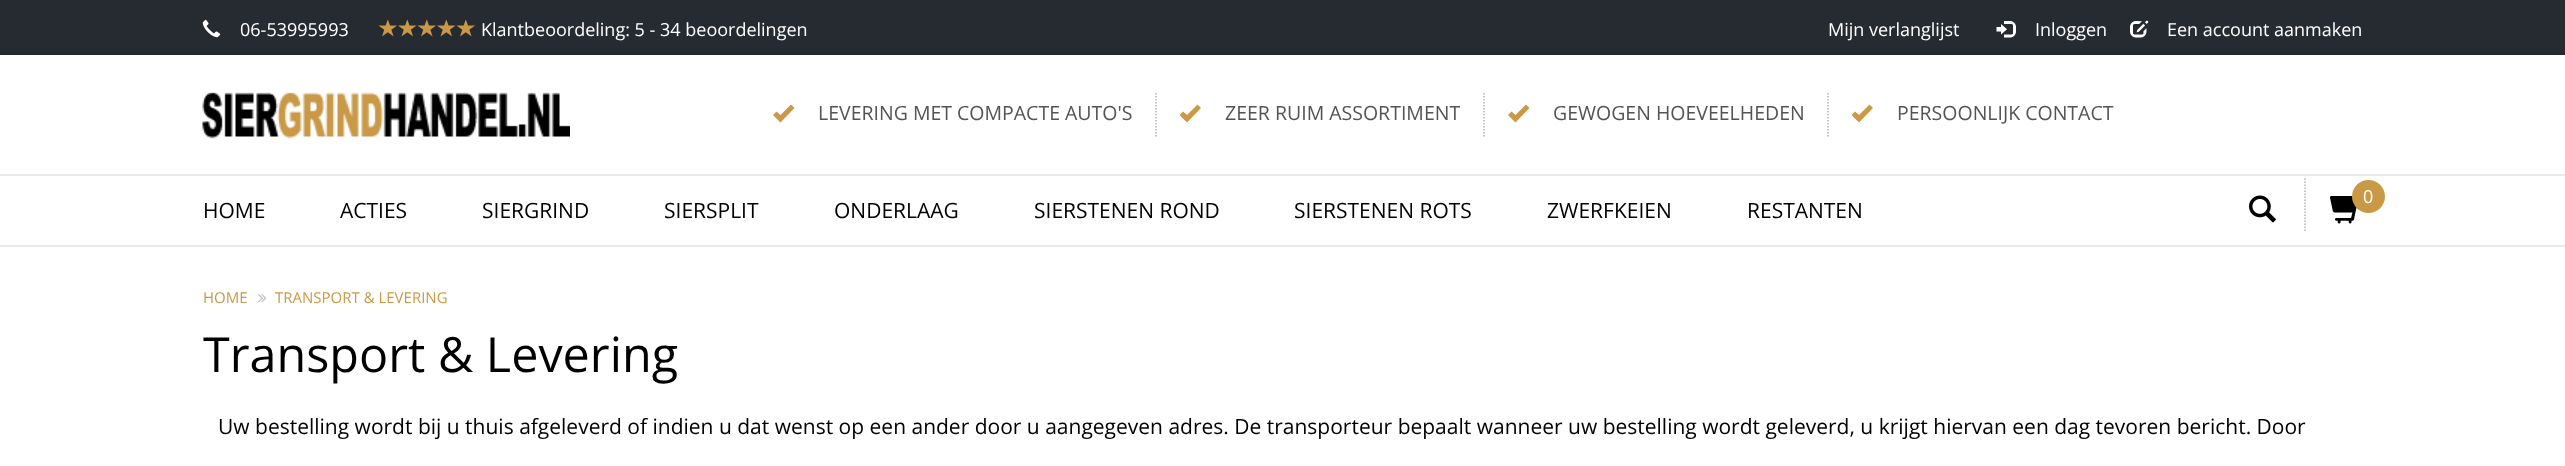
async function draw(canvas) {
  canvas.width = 2565
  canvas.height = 466
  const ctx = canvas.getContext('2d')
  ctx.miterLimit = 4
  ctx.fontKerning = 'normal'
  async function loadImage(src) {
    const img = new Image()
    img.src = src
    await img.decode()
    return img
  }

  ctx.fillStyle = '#fff'
  ctx.fillRect(0, 0, 2565, 466)
  ctx.fillStyle = '#262b32'
  ctx.fillRect(0, 0, 2565, 53)
  ctx.fillStyle = '#23272e'
  ctx.fillRect(0, 53, 2565, 2)
  ctx.drawImage(await loadImage('image0.png'), 202, 19, 19, 19)
  ctx.font = '18px Open Sans'
  ctx.fillStyle = '#fff'
  ctx.fillText('06-53995993', 240, 36)
  ctx.drawImage(await loadImage('image1.png'), 378, 19, 19, 18)
  ctx.drawImage(await loadImage('image2.png'), 398, 19, 19, 18)
  ctx.drawImage(await loadImage('image1.png'), 417, 19, 19, 18)
  ctx.drawImage(await loadImage('image2.png'), 437, 19, 19, 18)
  ctx.drawImage(await loadImage('image1.png'), 456, 19, 19, 18)
  ctx.fillText('Klantbeoordeling: 5 - 34 beoordelingen', 481, 36)
  ctx.fillText('Mijn verlanglijst', 1828, 36)
  ctx.drawImage(await loadImage('image3.png'), 1996, 21, 20, 17)
  ctx.fillText('Inloggen', 2035, 36)
  ctx.drawImage(await loadImage('image4.png'), 2130, 20, 19, 18)
  ctx.fillText('Een account aanmaken', 2167, 36)
  ctx.drawImage(await loadImage('image5.png'), 202, 92, 368, 47)
  ctx.beginPath()
  ctx.moveTo(1156, 93)
  ctx.lineTo(1156, 136.5)
  ctx.strokeStyle = '#b3b3b3'
  ctx.lineWidth = 1.5
  ctx.setLineDash([1.5, 1.5])
  ctx.stroke()
  ctx.fillStyle = '#c99947'
  ctx.beginPath()
  ctx.moveTo(773, 115)
  ctx.lineTo(780.5, 122.5)
  ctx.lineTo(794.5, 108)
  ctx.lineTo(791, 104.5)
  ctx.lineTo(780.5, 115)
  ctx.lineTo(776.5, 111.5)
  ctx.closePath()
  ctx.fill()
  ctx.font = '19.5px Open Sans'
  ctx.fillStyle = '#545454'
  ctx.fillText('LEVERING MET COMPACTE AUTO\'S', 818, 120)
  ctx.beginPath()
  ctx.moveTo(1484, 93)
  ctx.lineTo(1484, 136.5)
  ctx.stroke()
  ctx.fillStyle = '#c99947'
  ctx.beginPath()
  ctx.moveTo(1179.5, 115)
  ctx.lineTo(1187, 122.5)
  ctx.lineTo(1201, 108)
  ctx.lineTo(1197.5, 104.5)
  ctx.lineTo(1187, 115)
  ctx.lineTo(1183, 111.5)
  ctx.closePath()
  ctx.fill()
  ctx.fillStyle = '#545454'
  ctx.fillText('ZEER RUIM ASSORTIMENT', 1225, 120)
  ctx.beginPath()
  ctx.moveTo(1828, 93)
  ctx.lineTo(1828, 136.5)
  ctx.stroke()
  ctx.fillStyle = '#c99947'
  ctx.beginPath()
  ctx.moveTo(1508, 115)
  ctx.lineTo(1515.5, 122.5)
  ctx.lineTo(1529.5, 108)
  ctx.lineTo(1526, 104.5)
  ctx.lineTo(1515.5, 115)
  ctx.lineTo(1511.5, 111.5)
  ctx.closePath()
  ctx.fill()
  ctx.fillStyle = '#545454'
  ctx.fillText('GEWOGEN HOEVEELHEDEN', 1553, 120)
  ctx.fillStyle = '#c99947'
  ctx.beginPath()
  ctx.moveTo(1851.5, 115)
  ctx.lineTo(1859, 122.5)
  ctx.lineTo(1873, 108)
  ctx.lineTo(1869.5, 104.5)
  ctx.lineTo(1859, 115)
  ctx.lineTo(1855, 111.5)
  ctx.closePath()
  ctx.fill()
  ctx.fillStyle = '#545454'
  ctx.fillText('PERSOONLIJK CONTACT', 1897, 120)
  ctx.fillStyle = '#e9e9e9'
  ctx.fillRect(0, 174, 2565, 2)
  ctx.fillRect(0, 245, 2565, 2)
  ctx.drawImage(await loadImage('image6.png'), 2249, 195, 27, 28)
  ctx.beginPath()
  ctx.moveTo(2305, 178.5)
  ctx.lineTo(2305, 232.5)
  ctx.stroke()
  ctx.drawImage(await loadImage('image7.png'), 2330, 196, 27, 28)
  ctx.fillStyle = '#c99947'
  ctx.beginPath()
  ctx.arc(2368.5, 196.5, 16.5, 0, 2 * Math.PI)
  ctx.fill()
  ctx.font = '18px Open Sans'
  ctx.fillStyle = '#fff'
  ctx.fillText('0', 2363, 203)
  ctx.font = '21px Open Sans'
  ctx.fillStyle = '#000'
  ctx.fillText('HOME', 203, 218)
  ctx.fillText('ACTIES', 340, 218)
  ctx.fillText('SIERGRIND', 482, 218)
  ctx.fillText('SIERSPLIT', 664, 218)
  ctx.fillText('ONDERLAAG', 834, 218)
  ctx.fillText('SIERSTENEN ROND', 1034, 218)
  ctx.fillText('SIERSTENEN ROTS', 1294, 218)
  ctx.fillText('ZWERFKEIEN', 1547, 218)
  ctx.fillText('RESTANTEN', 1747, 218)
  ctx.font = '15px Open Sans'
  ctx.fillStyle = '#c99947'
  ctx.fillText('HOME', 203, 303)
  ctx.drawImage(await loadImage('image8.png'), 258, 294, 9, 9)
  ctx.fillText('TRANSPORT & LEVERING', 275, 303)
  ctx.font = '48.5px Open Sans'
  ctx.fillStyle = '#000'
  ctx.fillText('Transport & Levering', 203, 372)
  ctx.font = '21px Open Sans'
  ctx.fillText('Uw bestelling wordt bij u thuis afgeleverd of indien u dat wenst op een ander door u aangegeven adres. De transporteur bepaalt wanneer uw bestelling wordt geleverd, u krijgt hiervan een dag tevoren bericht. Door', 218, 434)
}

draw(document.querySelector('canvas'))
